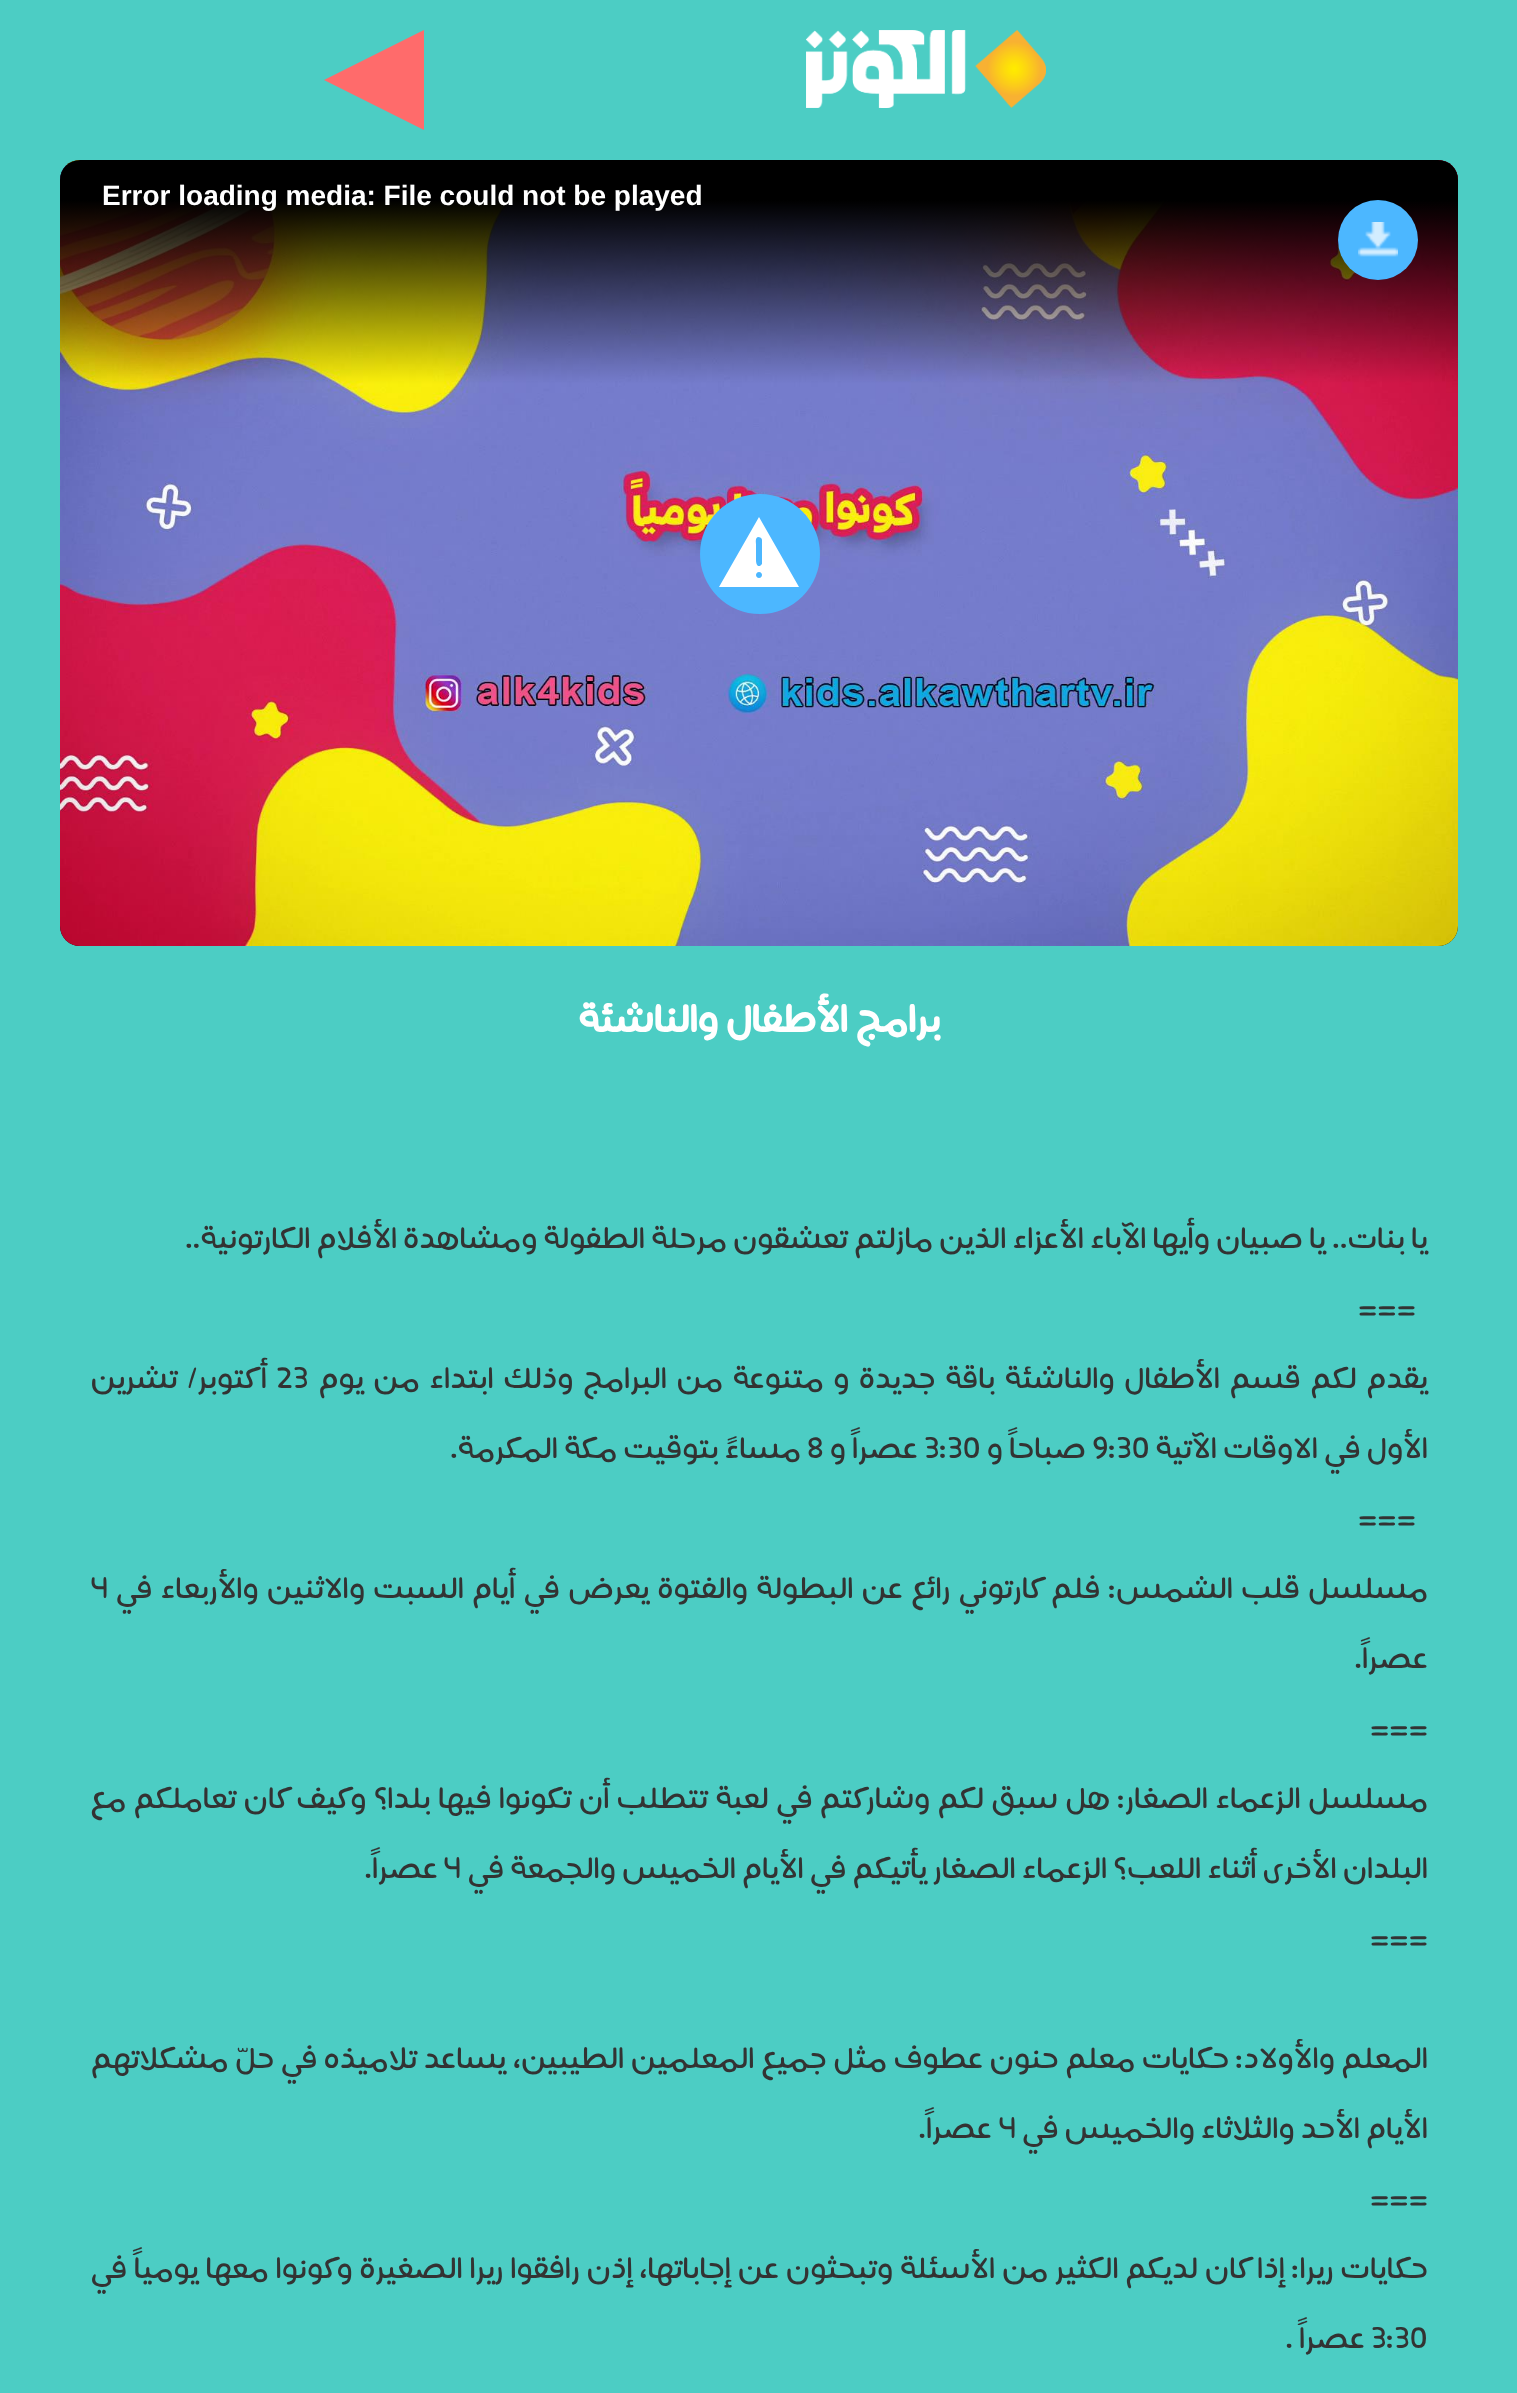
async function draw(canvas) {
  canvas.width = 1517
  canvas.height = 2393
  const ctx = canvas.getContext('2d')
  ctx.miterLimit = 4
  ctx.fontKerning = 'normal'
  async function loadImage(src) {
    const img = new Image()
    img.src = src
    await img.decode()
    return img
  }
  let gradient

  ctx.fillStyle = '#4ccdc4'
  ctx.fillRect(0, 0, 1517, 2393)
  ctx.drawImage(await loadImage('image0.png'), 806, 30, 240, 78)
  ctx.fillStyle = '#ff6b6b'
  ctx.beginPath()
  ctx.moveTo(424, 30)
  ctx.lineTo(424, 130)
  ctx.lineTo(324, 80)
  ctx.closePath()
  ctx.fill()
  ctx.fillStyle = '#000'
  ctx.beginPath()
  ctx.roundRect(60, 160, 1398, 786, 20)
  ctx.fill()
  ctx.drawImage(await loadImage('image1.png'), 60, 160, 1398, 786)
  gradient = ctx.createLinearGradient(759, 160, 759, 384)
  gradient.addColorStop(0, '#000')
  gradient.addColorStop(0.18, '#000')
  gradient.addColorStop(1, '#00000000')
  ctx.fillStyle = gradient
  ctx.beginPath()
  ctx.roundRect(60, 160, 1398, 224, [20, 20, 0, 0])
  ctx.fill()
  ctx.fillStyle = '#4cb7ff'
  ctx.beginPath()
  ctx.arc(1378, 240, 40, 0, 2 * Math.PI)
  ctx.fill()
  ctx.drawImage(await loadImage('image2.png'), 1358, 222, 40, 35)
  ctx.beginPath()
  ctx.arc(760, 554, 60, 0, 2 * Math.PI)
  ctx.fill()
  ctx.fillStyle = '#fff'
  ctx.beginPath()
  ctx.moveTo(719, 587)
  ctx.lineTo(759, 517)
  ctx.lineTo(799, 587)
  ctx.closePath()
  ctx.moveTo(759, 578)
  ctx.bezierCurveTo(763, 578, 763, 572, 759, 572)
  ctx.bezierCurveTo(755, 572, 755, 578, 759, 578)
  ctx.closePath()
  ctx.moveTo(762, 540)
  ctx.bezierCurveTo(762, 538, 760, 537, 758, 537)
  ctx.bezierCurveTo(755, 538, 756, 542, 756, 544)
  ctx.lineTo(756, 559)
  ctx.bezierCurveTo(756, 561, 756, 567, 760, 566)
  ctx.lineTo(762, 564)
  ctx.closePath()
  ctx.fill()
  ctx.font = 'bold 28px Liberation Sans'
  ctx.fillText('Error loading media: File could not be played', 102, 205)
  ctx.direction = 'rtl'
  ctx.font = 'bold 56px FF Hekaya'
  ctx.fillText('برامج الأطفال والناشئة', 940, 1032)
  ctx.font = '300 44px FF Hekaya'
  ctx.fillStyle = '#333'
  ctx.fillText('يا بنات.. يا صبيان وأيها الآباء الأعزاء الذين مازلتم تعشقون مرحلة الطفولة ومشاهدة الأفلام الكارتونية..', 1428, 1248)
  ctx.direction = 'ltr'
  ctx.fillText('===', 1358, 1318)
  ctx.wordSpacing = '3.5px'
  ctx.direction = 'rtl'
  ctx.fillText('يقدم لكم قسم الأطفال والناشئة باقة جديدة و متنوعة من البرامج وذلك ابتداء من يوم', 1428, 1388)
  ctx.wordSpacing = '0px'
  ctx.direction = 'ltr'
  ctx.fillText('23', 276, 1388)
  ctx.wordSpacing = '3.5px'
  ctx.direction = 'rtl'
  ctx.fillText('أكتوبر/ تشرين', 267, 1388)
  ctx.wordSpacing = '0px'
  ctx.fillText('الأول في الاوقات الآتية', 1428, 1458)
  ctx.direction = 'ltr'
  ctx.fillText('9:30', 1092, 1458)
  ctx.direction = 'rtl'
  ctx.fillText('صباحاً و', 1086, 1458)
  ctx.direction = 'ltr'
  ctx.fillText('3:30', 924, 1458)
  ctx.direction = 'rtl'
  ctx.fillText('عصراً و', 918, 1458)
  ctx.direction = 'ltr'
  ctx.fillText('8', 807, 1458)
  ctx.direction = 'rtl'
  ctx.fillText('مساءً بتوقيت مكة المكرمة.', 801, 1458)
  ctx.direction = 'ltr'
  ctx.fillText('===', 1358, 1528)
  ctx.wordSpacing = '2.1px'
  ctx.direction = 'rtl'
  ctx.fillText('مسلسل قلب الشمس: فلم كارتوني رائع عن البطولة والفتوة يعرض في أيام السبت والاثنين والأربعاء في', 1428, 1598)
  ctx.wordSpacing = '0px'
  ctx.direction = 'ltr'
  ctx.fillText('4', 90, 1598)
  ctx.direction = 'rtl'
  ctx.fillText('عصراً.', 1428, 1668)
  ctx.direction = 'ltr'
  ctx.fillText('===', 1370, 1738)
  ctx.wordSpacing = '1.25px'
  ctx.direction = 'rtl'
  ctx.fillText('مسلسل الزعماء الصغار: هل سبق لكم وشاركتم في لعبة تتطلب أن تكونوا فيها بلدا؟ وكيف كان تعاملكم مع', 1428, 1808)
  ctx.wordSpacing = '0px'
  ctx.fillText('البلدان الأخرى أثناء اللعب؟ الزعماء الصغار يأتيكم في الأيام الخميس والجمعة في', 1428, 1878)
  ctx.direction = 'ltr'
  ctx.fillText('4', 443, 1878)
  ctx.direction = 'rtl'
  ctx.fillText('عصراً.', 438, 1878)
  ctx.direction = 'ltr'
  ctx.fillText('===', 1370, 1948)
  ctx.wordSpacing = '0.5px'
  ctx.direction = 'rtl'
  ctx.fillText('المعلم والأولاد: حكايات معلم حنون عطوف مثل جميع المعلمين الطيبين، يساعد تلاميذه في حلّ مشكلاتهم', 1428, 2068)
  ctx.wordSpacing = '0px'
  ctx.fillText('الأيام الأحد والثلاثاء والخميس في', 1428, 2138)
  ctx.direction = 'ltr'
  ctx.fillText('4', 998, 2138)
  ctx.direction = 'rtl'
  ctx.fillText('عصراً.', 992, 2138)
  ctx.direction = 'ltr'
  ctx.fillText('===', 1370, 2208)
  ctx.wordSpacing = '0.75px'
  ctx.direction = 'rtl'
  ctx.fillText('حكايات ريرا: إذا كان لديكم الكثير من الأسئلة وتبحثون عن إجاباتها، إذن رافقوا ريرا الصغيرة وكونوا معها يومياً في', 1428, 2278)
  ctx.wordSpacing = '0px'
  ctx.direction = 'ltr'
  ctx.fillText('3:30', 1371, 2348)
  ctx.direction = 'rtl'
  ctx.fillText('عصراً .', 1365, 2348)
}

draw(document.querySelector('canvas'))
